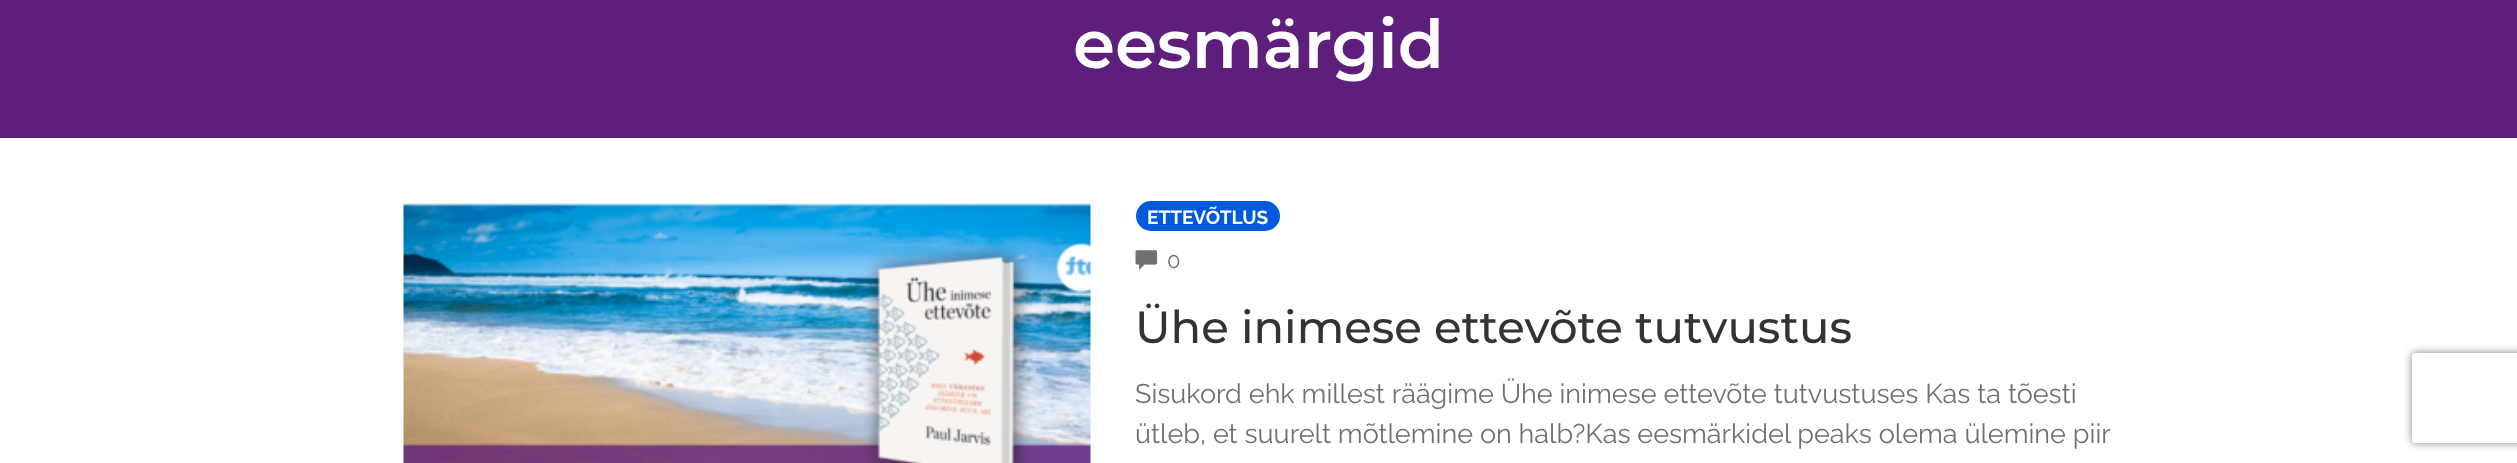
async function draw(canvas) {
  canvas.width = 2517
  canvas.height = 463
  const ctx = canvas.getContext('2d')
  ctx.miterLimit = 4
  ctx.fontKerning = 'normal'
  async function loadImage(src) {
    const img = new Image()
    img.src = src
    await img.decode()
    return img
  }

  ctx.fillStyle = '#fff'
  ctx.fillRect(0, 0, 2517, 463)
  ctx.fillStyle = '#5e1e7c'
  ctx.fillRect(0, 0, 2517, 138)
  ctx.font = '600 67.5px Montserrat'
  ctx.fillStyle = '#fff'
  ctx.fillText('eesmärgid', 1073, 68)
  ctx.drawImage(await loadImage('image0.png'), 403, 203, 688, 260)
  ctx.fillStyle = '#005bdc'
  ctx.beginPath()
  ctx.roundRect(1136, 201, 144, 30, 15)
  ctx.fill()
  ctx.font = 'bold 19px Raleway'
  ctx.fillStyle = '#fff'
  ctx.fillText('ETTEVÕTLUS', 1147, 224)
  ctx.drawImage(await loadImage('image1.png'), 1135, 250, 23, 20)
  ctx.font = '100 22px Raleway'
  ctx.fillStyle = '#707070'
  ctx.fillText('0', 1167, 268)
  ctx.font = '500 45px Montserrat'
  ctx.fillStyle = '#333'
  ctx.fillText('Ühe inimese ettevõte tutvustus', 1135, 343)
  ctx.font = '100 27px Raleway'
  ctx.fillStyle = '#707070'
  ctx.fillText('Sisukord ehk millest räägime Ühe inimese ettevõte tutvustuses Kas ta tõesti', 1135, 403)
  ctx.fillText('ütleb, et suurelt mõtlemine on halb?Kas eesmärkidel peaks olema ülemine piir', 1135, 443)
  ctx.save()
  ctx.beginPath()
  ctx.moveTo(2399, 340)
  ctx.lineTo(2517, 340)
  ctx.lineTo(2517, 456)
  ctx.lineTo(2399, 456)
  ctx.closePath()
  ctx.moveTo(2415, 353)
  ctx.lineTo(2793, 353)
  ctx.bezierCurveTo(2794.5, 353, 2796, 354.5, 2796, 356)
  ctx.lineTo(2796, 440)
  ctx.bezierCurveTo(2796, 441.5, 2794.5, 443, 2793, 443)
  ctx.lineTo(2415, 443)
  ctx.bezierCurveTo(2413.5, 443, 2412, 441.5, 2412, 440)
  ctx.lineTo(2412, 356)
  ctx.bezierCurveTo(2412, 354.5, 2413.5, 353, 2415, 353)
  ctx.closePath()
  ctx.clip('evenodd')
  ctx.fillStyle = '#808080'
  ctx.filter = 'blur(4px)'
  ctx.beginPath()
  ctx.roundRect(2412, 353, 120, 90, 3)
  ctx.fill()
  ctx.filter = 'none'
  ctx.restore()
}

draw(document.querySelector('canvas'))
